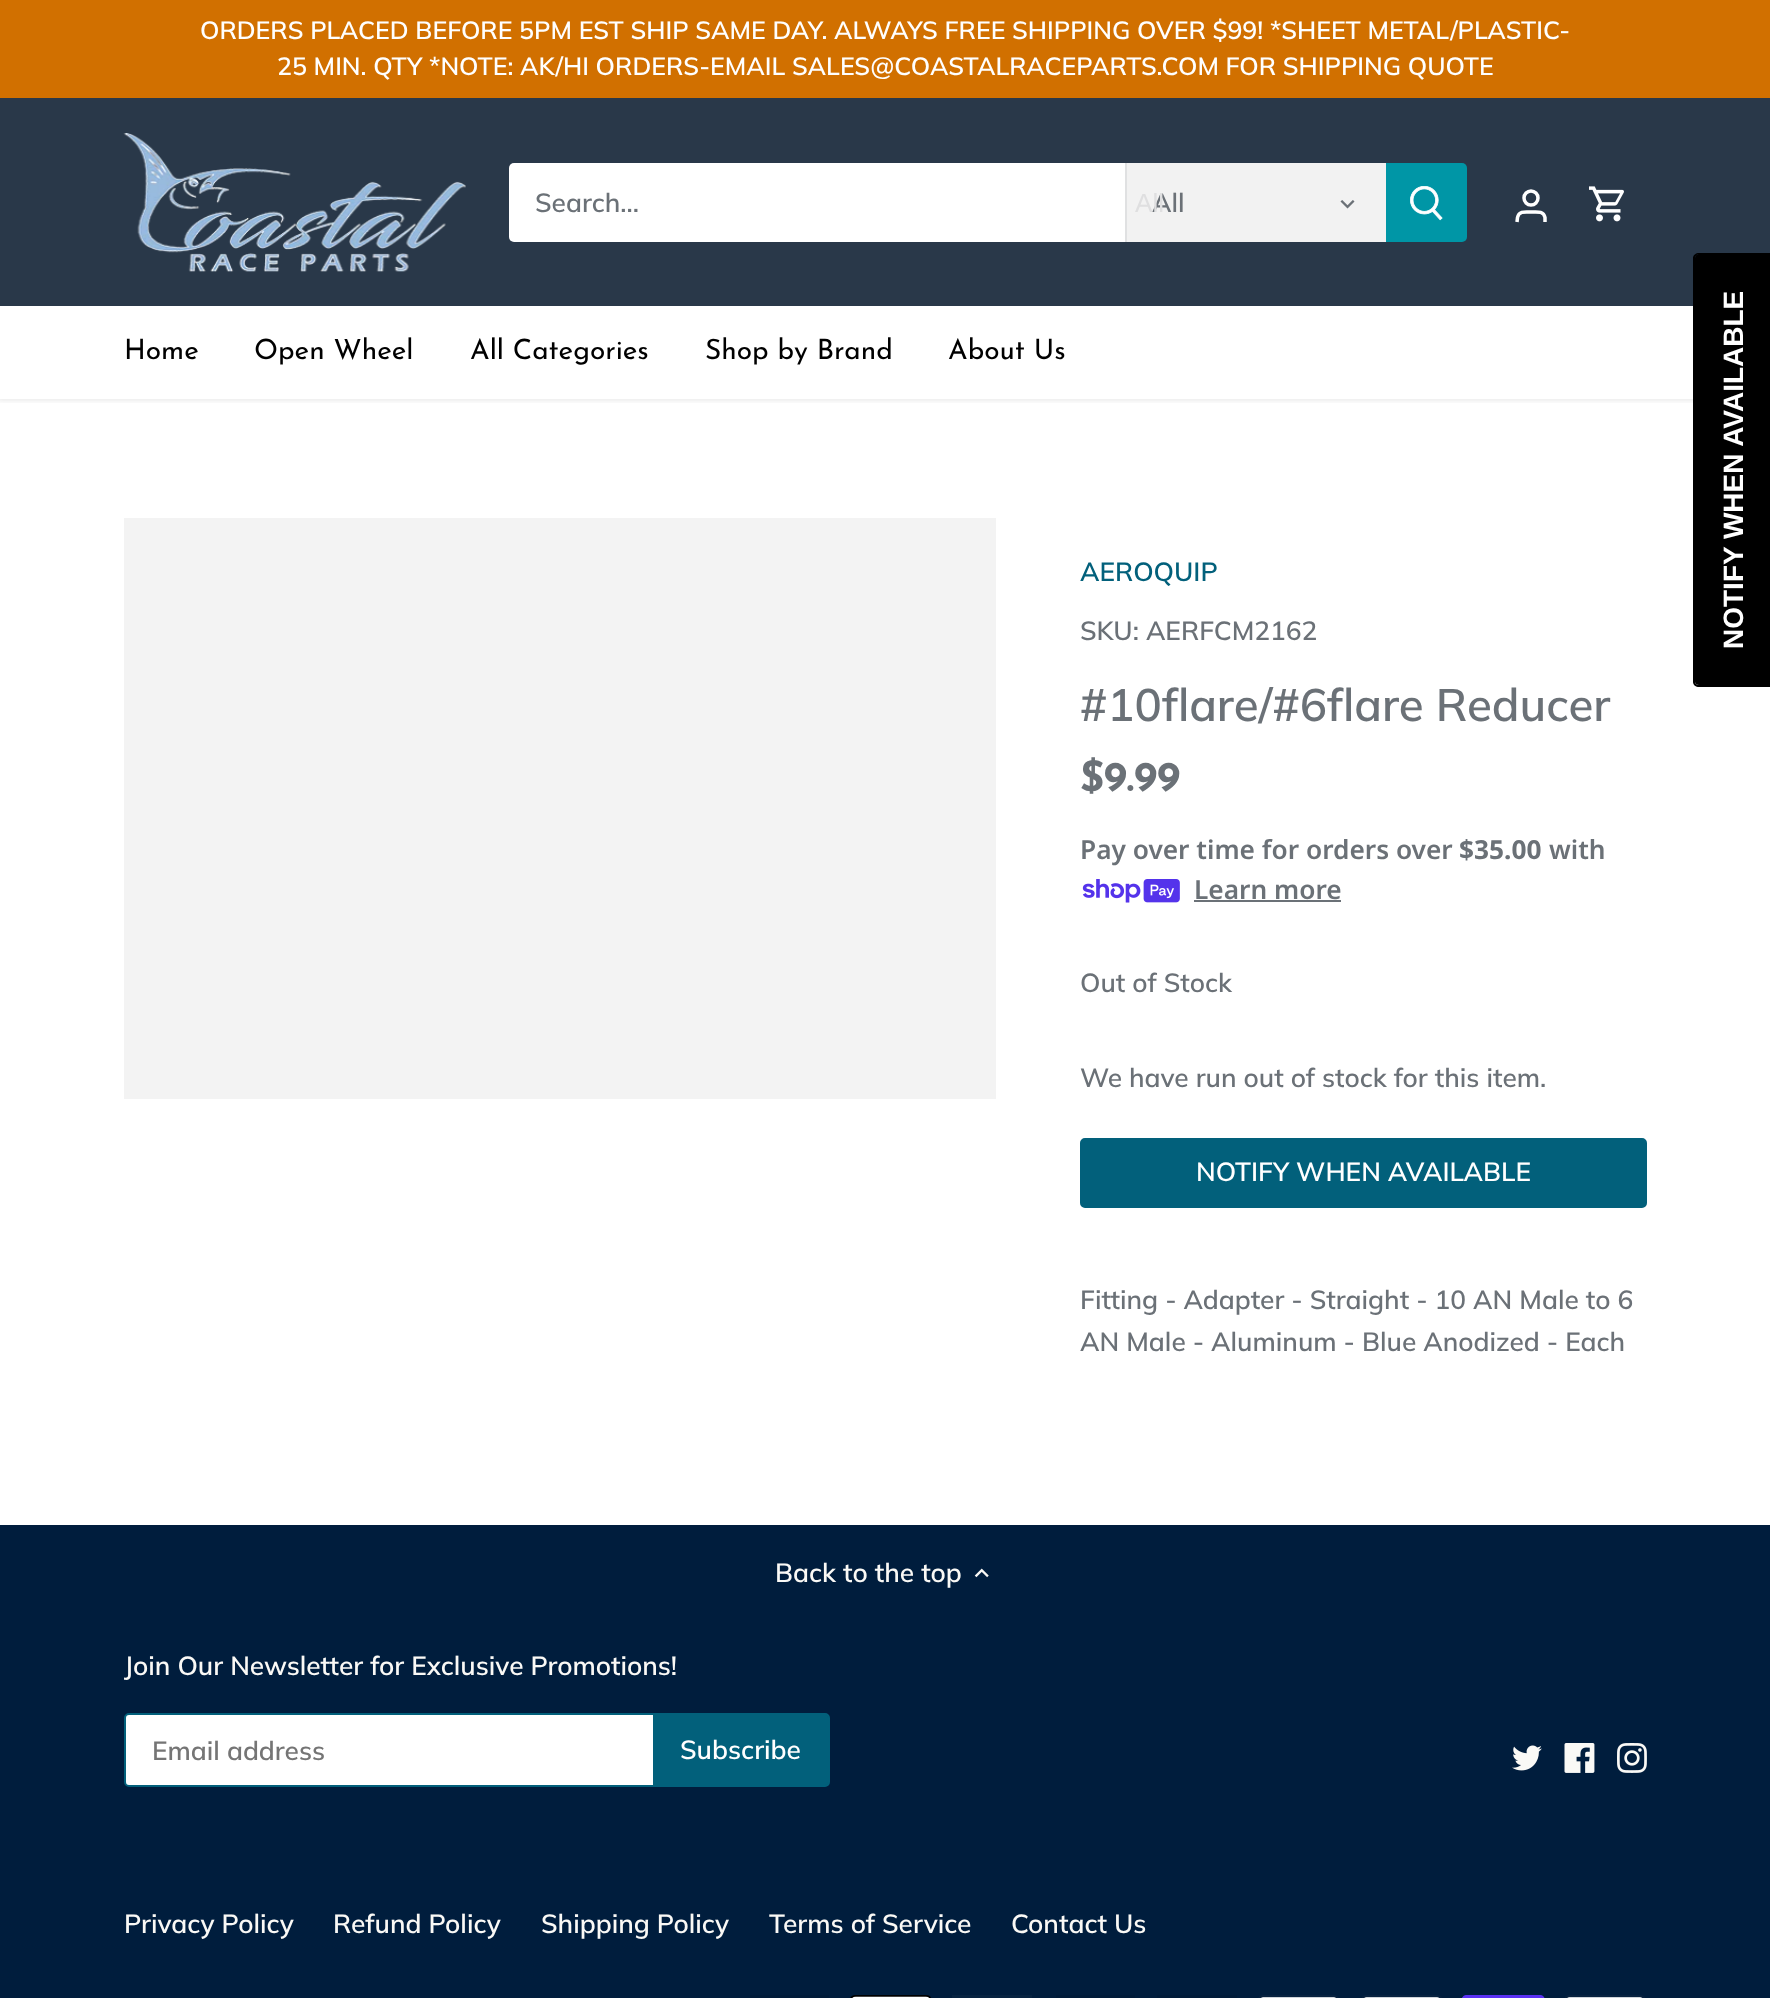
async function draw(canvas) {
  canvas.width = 1770
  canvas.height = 1998
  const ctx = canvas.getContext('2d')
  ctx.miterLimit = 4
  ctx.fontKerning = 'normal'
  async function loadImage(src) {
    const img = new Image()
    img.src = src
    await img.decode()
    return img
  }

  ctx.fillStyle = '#001d3d'
  ctx.fillRect(0, 0, 1770, 1998)
  ctx.fillStyle = '#fff'
  ctx.fillRect(0, 306, 1770, 1219)
  ctx.save()
  ctx.beginPath()
  ctx.rect(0, 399, 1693, 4)
  ctx.clip()
  ctx.fillStyle = '#00000014'
  ctx.filter = 'blur(2.5px)'
  ctx.beginPath()
  ctx.rect(-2, 96, 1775, 305)
  ctx.fill()
  ctx.filter = 'none'
  ctx.restore()
  ctx.fillStyle = '#d17000'
  ctx.fillRect(0, 0, 1770, 98)
  ctx.font = '600 24.95px Muli'
  ctx.fillStyle = '#fff'
  ctx.fillText('ORDERS PLACED BEFORE 5PM EST SHIP SAME DAY. ALWAYS FREE SHIPPING OVER $99! *SHEET METAL/PLASTIC-', 200, 39)
  ctx.fillText('25 MIN. QTY *NOTE: AK/HI ORDERS-EMAIL SALES@COASTALRACEPARTS.COM FOR SHIPPING QUOTE', 277, 75)
  ctx.fillStyle = '#293849'
  ctx.fillRect(0, 98, 1770, 208)
  ctx.drawImage(await loadImage('image0.png'), 123, 133, 343, 139)
  ctx.fillStyle = '#fff'
  ctx.beginPath()
  ctx.roundRect(509, 163, 616, 79, [5, 0, 0, 5])
  ctx.fill()
  ctx.font = '600 26.25px Muli'
  ctx.fillStyle = '#6b7177'
  ctx.fillText('Search...', 535, 212)
  ctx.fillStyle = '#f2f2f2'
  ctx.fillRect(1127, 163, 259, 79)
  ctx.fillStyle = '#e0e1e2'
  ctx.fillRect(1125, 163, 2, 79)
  ctx.fillStyle = '#6b7177'
  ctx.fillText('All', 1152, 212)
  ctx.font = '26.25px Liberation Sans'
  ctx.fillStyle = '#dfdfe0'
  ctx.fillText('All', 1135, 212)
  ctx.drawImage(await loadImage('image1.png'), 1340, 200, 15, 9)
  ctx.fillStyle = '#0096a6'
  ctx.beginPath()
  ctx.roundRect(1386, 163, 81, 79, [0, 5, 5, 0])
  ctx.fill()
  ctx.drawImage(await loadImage('image2.png'), 1410, 186, 33, 35)
  ctx.beginPath()
  ctx.arc(1531, 198, 7, 0, 2 * Math.PI)
  ctx.strokeStyle = '#fff'
  ctx.lineWidth = 3.5
  ctx.stroke()
  ctx.beginPath()
  ctx.moveTo(1545, 222)
  ctx.lineTo(1545, 217.5)
  ctx.bezierCurveTo(1543.5, 210.5, 1536.5, 212, 1531, 212)
  ctx.bezierCurveTo(1526, 212, 1519, 210.5, 1517.5, 217.5)
  ctx.lineTo(1517, 222)
  ctx.stroke()
  ctx.drawImage(await loadImage('image3.png'), 1589, 186, 35, 36)
  ctx.font = '28px Josefin Sans'
  ctx.fillStyle = '#000'
  ctx.fillText('Home', 124, 359)
  ctx.fillText('Open Wheel', 254, 359)
  ctx.fillText('All Categories', 470, 359)
  ctx.fillText('Shop by Brand', 705, 359)
  ctx.fillText('About Us', 948, 359)
  ctx.fillStyle = '#f3f3f3'
  ctx.fillRect(124, 518, 872, 581)
  ctx.font = '600 26.25px Muli'
  ctx.fillStyle = '#02607b'
  ctx.fillText('AEROQUIP', 1080, 581)
  ctx.fillStyle = '#6b7177'
  ctx.fillText('SKU: AERFCM2162', 1080, 640)
  ctx.font = '600 45.5px Muli'
  ctx.fillText('#10flare/#6flare Reducer', 1080, 721)
  ctx.font = 'bold 42px Josefin Sans'
  ctx.fillText('$9.99', 1080, 791)
  ctx.font = '600 26.25px Noto Sans'
  ctx.fillText('Pay over time for orders over', 1080, 859)
  ctx.font = 'bold 26.25px Noto Sans'
  ctx.fillText('$35.00', 1459, 859)
  ctx.font = '600 26.25px Noto Sans'
  ctx.fillText('with', 1549, 859)
  ctx.drawImage(await loadImage('image4.png'), 1082, 879, 98, 24)
  ctx.fillText('Learn more', 1194, 899)
  ctx.fillRect(1194, 900, 147, 2)
  ctx.font = '600 26.25px Muli'
  ctx.fillText('Out of Stock', 1080, 992)
  ctx.fillText('We have run out of stock for this item.', 1080, 1087)
  ctx.fillStyle = '#02607b'
  ctx.beginPath()
  ctx.roundRect(1082, 1140, 563, 66, 3)
  ctx.fill()
  ctx.strokeStyle = '#02607b'
  ctx.lineWidth = 4
  ctx.stroke()
  ctx.fillStyle = '#fff'
  ctx.fillText('NOTIFY WHEN AVAILABLE', 1196, 1181)
  ctx.fillStyle = '#6b7177'
  ctx.fillText('Fitting - Adapter - Straight - 10 AN Male to 6', 1080, 1309)
  ctx.fillText('AN Male - Aluminum - Blue Anodized - Each', 1080, 1351)
  ctx.fillStyle = '#faf9f6'
  ctx.fillText('Back to the top', 775, 1582)
  ctx.drawImage(await loadImage('image5.png'), 974, 1568, 15, 10)
  ctx.fillText('Join Our Newsletter for Exclusive Promotions!', 124, 1675)
  ctx.fillStyle = '#fff'
  ctx.beginPath()
  ctx.roundRect(125, 1714, 702, 72, 4)
  ctx.fill()
  ctx.lineWidth = 2
  ctx.stroke()
  ctx.fillStyle = '#757575'
  ctx.fillText('Email address', 152, 1760)
  ctx.fillStyle = '#02607b'
  ctx.beginPath()
  ctx.roundRect(654, 1714, 175, 72, [0, 4, 4, 0])
  ctx.fill()
  ctx.stroke()
  ctx.fillStyle = '#fff'
  ctx.fillText('Subscribe', 680, 1759)
  ctx.drawImage(await loadImage('image6.png'), 1512, 1745, 30, 26)
  ctx.drawImage(await loadImage('image7.png'), 1564, 1743, 31, 30)
  ctx.drawImage(await loadImage('image8.png'), 1617, 1743, 30, 30)
  ctx.fillStyle = '#faf9f6'
  ctx.fillText('Privacy Policy', 124, 1933)
  ctx.fillText('Refund Policy', 333, 1933)
  ctx.fillText('Shipping Policy', 541, 1933)
  ctx.fillText('Terms of Service', 769, 1933)
  ctx.fillText('Contact Us', 1011, 1933)
  ctx.fillStyle = '#001b39'
  ctx.fillRect(750, 1995, 79, 3)
  ctx.drawImage(await loadImage('image9.png'), 850, 1995, 81, 3)
  ctx.fillStyle = '#072341'
  ctx.fillRect(952, 1995, 80, 3)
  ctx.fillStyle = '#001b39'
  ctx.fillRect(1056, 1995, 79, 3)
  ctx.fillRect(1157, 1995, 80, 3)
  ctx.drawImage(await loadImage('image10.png'), 1258, 1995, 81, 3)
  ctx.drawImage(await loadImage('image11.png'), 1362, 1995, 80, 3)
  ctx.drawImage(await loadImage('image12.png'), 1462, 1995, 83, 3)
  ctx.drawImage(await loadImage('image11.png'), 1565, 1995, 80, 3)
  ctx.fillStyle = '#000'
  ctx.beginPath()
  ctx.moveTo(1695, 682)
  ctx.lineTo(1695, 258)
  ctx.bezierCurveTo(1695, 256, 1697, 254, 1699, 254)
  ctx.lineTo(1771, 254)
  ctx.lineTo(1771, 685)
  ctx.lineTo(1699, 685)
  ctx.bezierCurveTo(1697, 685, 1695, 684, 1695, 682)
  ctx.closePath()
  ctx.fill()
  ctx.beginPath()
  ctx.moveTo(1693, 682)
  ctx.lineTo(1693, 258)
  ctx.bezierCurveTo(1693, 255, 1696, 253, 1699, 253)
  ctx.lineTo(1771, 253)
  ctx.lineTo(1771, 687)
  ctx.lineTo(1699, 687)
  ctx.bezierCurveTo(1696, 687, 1693, 685, 1693, 682)
  ctx.closePath()
  ctx.moveTo(1695, 682)
  ctx.lineTo(1695, 258)
  ctx.bezierCurveTo(1695, 256, 1697, 254, 1699, 254)
  ctx.lineTo(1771, 254)
  ctx.lineTo(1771, 685)
  ctx.lineTo(1699, 685)
  ctx.bezierCurveTo(1697, 685, 1695, 684, 1695, 682)
  ctx.closePath()
  ctx.fill('evenodd')
  ctx.font = 'bold 28px Liberation Sans'
  ctx.fillStyle = '#fff'
  ctx.save()
  ctx.translate(1743, 649)
  ctx.rotate(-90 * Math.PI / 180)
  ctx.fillText('NOTIFY WHEN AVAILABLE', 0, 0)
  ctx.restore()
}

draw(document.querySelector('canvas'))
